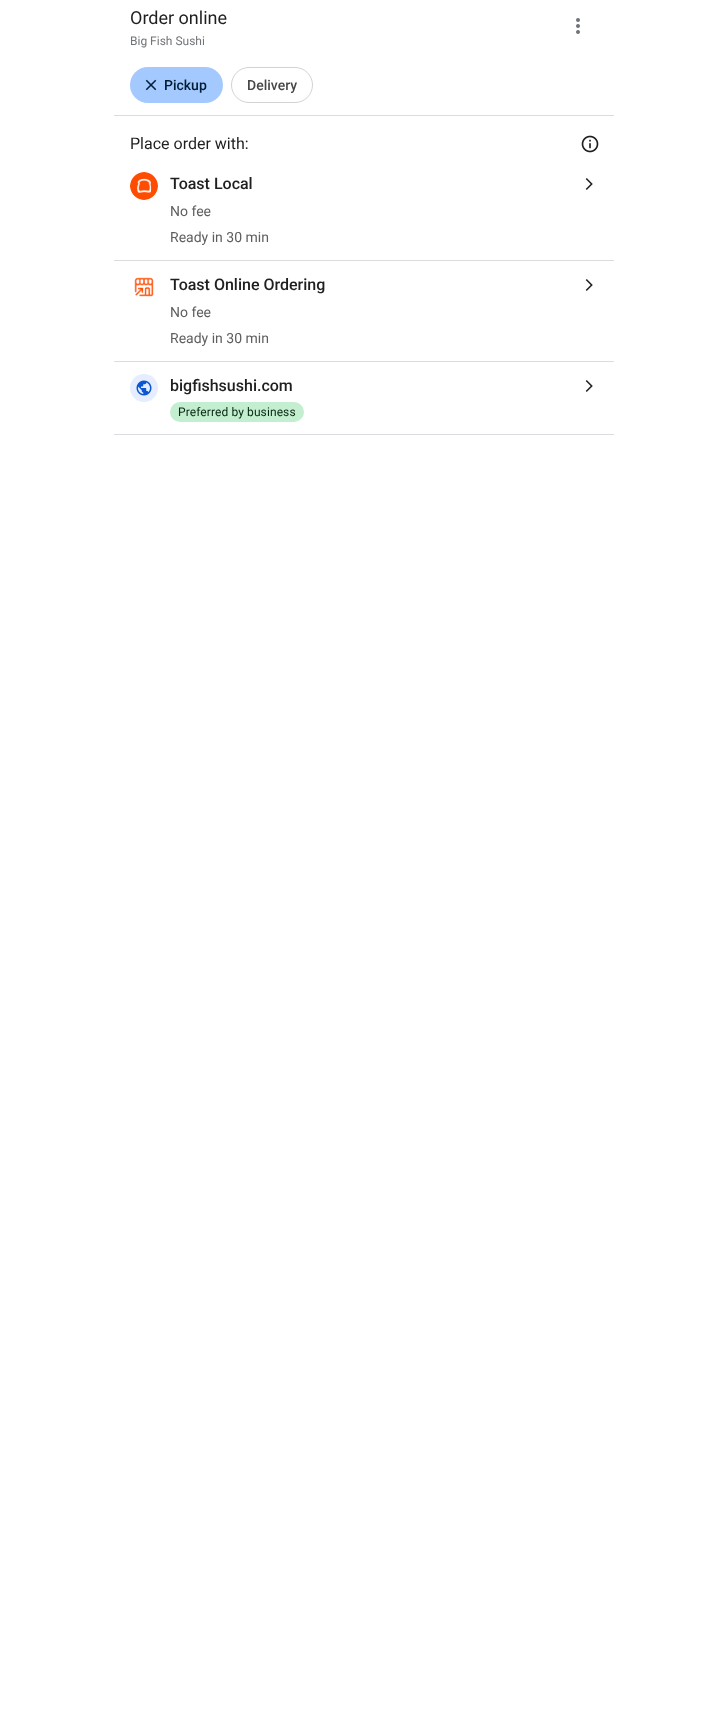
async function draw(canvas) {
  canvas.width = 728
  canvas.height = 1718
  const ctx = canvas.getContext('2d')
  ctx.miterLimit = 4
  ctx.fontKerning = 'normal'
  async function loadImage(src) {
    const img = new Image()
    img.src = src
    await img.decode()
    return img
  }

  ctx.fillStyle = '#fff'
  ctx.fillRect(0, 0, 728, 1718)
  ctx.font = '18px Roboto'
  ctx.fillStyle = '#1f1f1f'
  ctx.fillText('Order online', 130, 24)
  ctx.font = '12px Roboto'
  ctx.fillStyle = '#70757a'
  ctx.fillText('Big Fish Sushi', 130, 45)
  ctx.drawImage(await loadImage('image0.png'), 576, 18, 4, 16)
  ctx.fillStyle = '#a3c9ff'
  ctx.beginPath()
  ctx.roundRect(130, 67, 93, 36, 18)
  ctx.fill()
  ctx.drawImage(await loadImage('image1.png'), 145, 79, 12, 12)
  ctx.font = '500 14px Roboto'
  ctx.fillStyle = '#001d35'
  ctx.fillText('Pickup', 164, 90)
  ctx.beginPath()
  ctx.roundRect(231.5, 67.5, 81, 35, 17.5)
  ctx.strokeStyle = '#d2d2d2'
  ctx.stroke()
  ctx.fillStyle = '#474747'
  ctx.fillText('Delivery', 247, 90)
  ctx.fillStyle = '#dadce0'
  ctx.fillRect(114, 115, 500, 1)
  ctx.font = '16px Roboto'
  ctx.fillStyle = '#1f1f1f'
  ctx.fillText('Place order with:', 130, 149)
  ctx.drawImage(await loadImage('image2.png'), 581, 135, 18, 18)
  ctx.drawImage(await loadImage('image3.png'), 130, 172, 28, 28)
  ctx.font = '500 16px Roboto'
  ctx.fillText('Toast Local', 170, 189)
  ctx.drawImage(await loadImage('image4.png'), 585, 178, 8, 12)
  ctx.font = '14px Roboto'
  ctx.fillStyle = '#5e5e5e'
  ctx.fillText('No fee', 170, 216)
  ctx.fillText('Ready in 30 min', 170, 242)
  ctx.fillStyle = '#dadce0'
  ctx.fillRect(114, 260, 500, 1)
  ctx.drawImage(await loadImage('image5.png'), 134, 277, 20, 20)
  ctx.font = '500 16px Roboto'
  ctx.fillStyle = '#1f1f1f'
  ctx.fillText('Toast Online Ordering', 170, 290)
  ctx.drawImage(await loadImage('image4.png'), 585, 279, 8, 12)
  ctx.font = '14px Roboto'
  ctx.fillStyle = '#5e5e5e'
  ctx.fillText('No fee', 170, 317)
  ctx.fillText('Ready in 30 min', 170, 343)
  ctx.fillStyle = '#dadce0'
  ctx.fillRect(114, 361, 500, 1)
  ctx.fillStyle = '#e5edff'
  ctx.beginPath()
  ctx.arc(144, 388, 14, 0, 2 * Math.PI)
  ctx.fill()
  ctx.drawImage(await loadImage('image6.png'), 136, 380, 16, 16)
  ctx.font = '500 16px Roboto'
  ctx.fillStyle = '#1f1f1f'
  ctx.fillText('bigfishsushi.com', 170, 391)
  ctx.drawImage(await loadImage('image4.png'), 585, 380, 8, 12)
  ctx.fillStyle = '#c4eed0'
  ctx.beginPath()
  ctx.roundRect(170, 402, 134, 20, 10)
  ctx.fill()
  ctx.letterSpacing = '0.1px'
  ctx.font = '12px Roboto'
  ctx.fillStyle = '#072711'
  ctx.fillText('Preferred by business', 178, 416)
  ctx.fillStyle = '#dadce0'
  ctx.fillRect(114, 434, 500, 1)
}

draw(document.querySelector('canvas'))
